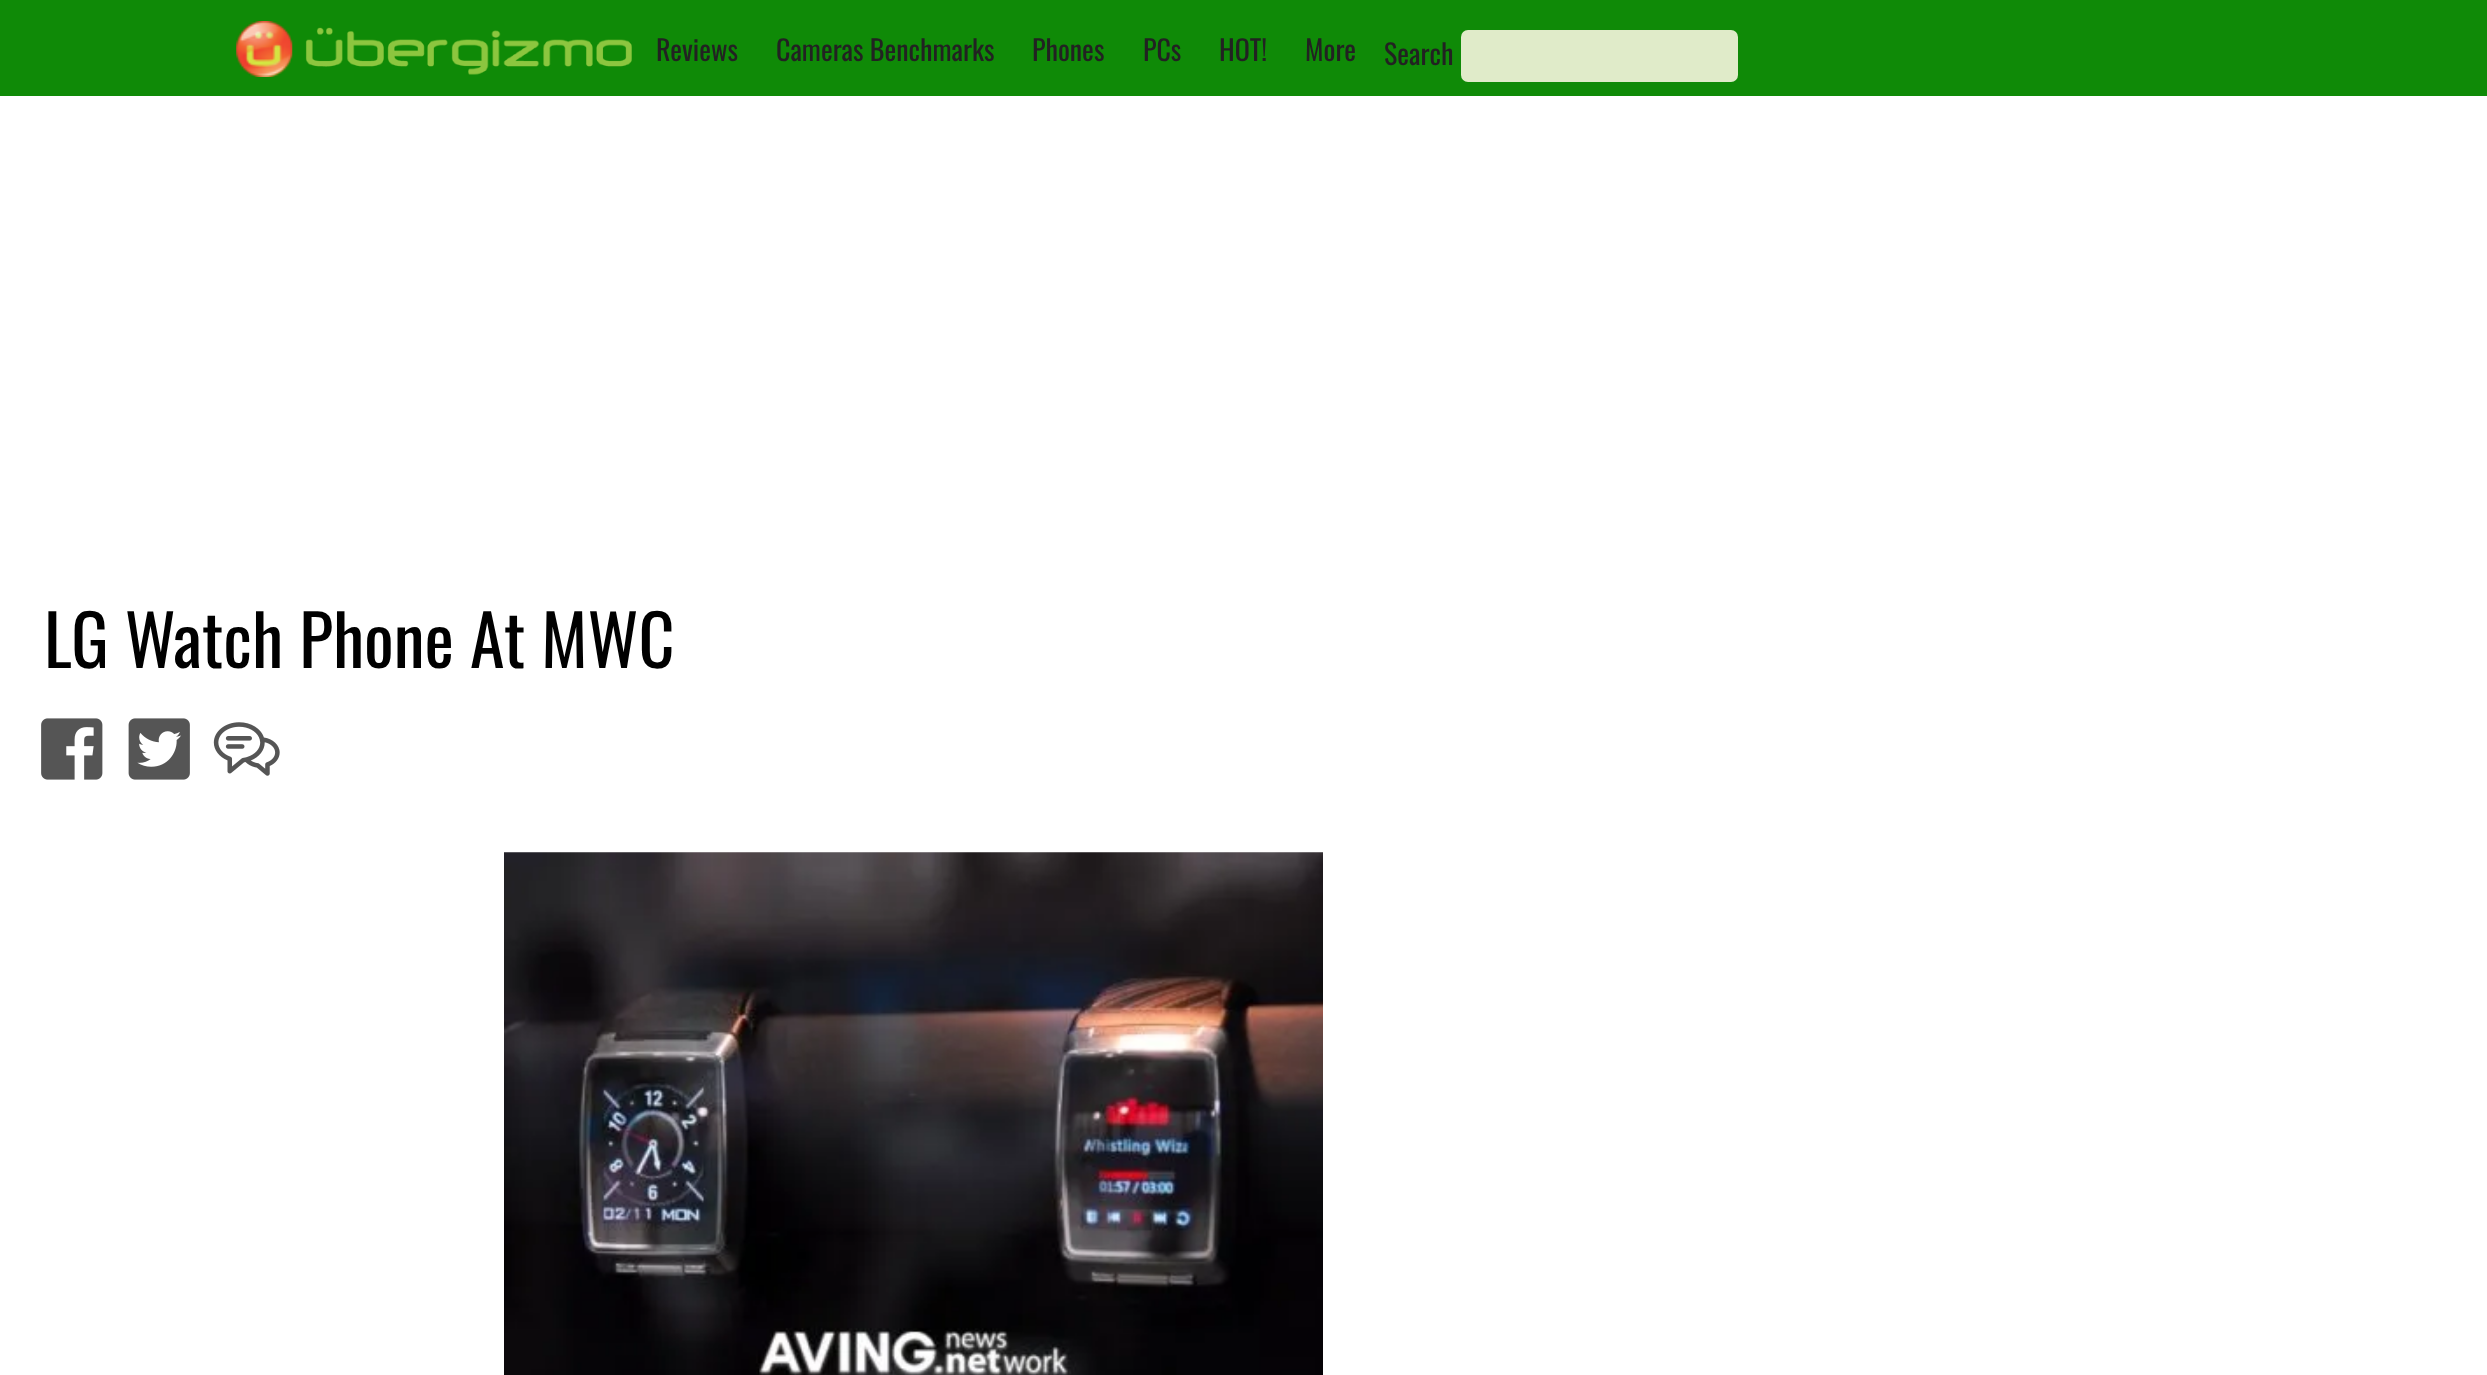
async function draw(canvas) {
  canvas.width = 2487
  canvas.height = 1375
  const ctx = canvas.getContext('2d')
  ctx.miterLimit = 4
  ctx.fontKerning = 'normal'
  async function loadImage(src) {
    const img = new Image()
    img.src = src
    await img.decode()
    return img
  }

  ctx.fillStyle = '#fff'
  ctx.fillRect(0, 0, 2487, 1375)
  ctx.fillStyle = '#0f8a07'
  ctx.fillRect(0, 0, 2487, 96)
  ctx.drawImage(await loadImage('image0.png'), 236, 21, 57, 56)
  ctx.drawImage(await loadImage('image1.png'), 305, 27, 327, 48)
  ctx.font = '28px Oswald'
  ctx.fillStyle = '#222'
  ctx.fillText('Reviews', 656, 61)
  ctx.fillText('Cameras Benchmarks', 776, 61)
  ctx.fillText('Phones', 1032, 61)
  ctx.fillText('PCs', 1143, 61)
  ctx.fillText('HOT!', 1219, 61)
  ctx.fillText('More', 1305, 61)
  ctx.fillText('Search', 1384, 65)
  ctx.fillStyle = '#e0ebc9'
  ctx.beginPath()
  ctx.roundRect(1461, 30, 277, 52, 7)
  ctx.fill()
  ctx.font = '70px Oswald'
  ctx.fillStyle = '#000'
  ctx.fillText('LG Watch Phone At MWC', 44, 668)
  ctx.drawImage(await loadImage('image2.png'), 41, 718, 62, 62)
  ctx.drawImage(await loadImage('image3.png'), 128, 718, 62, 62)
  ctx.drawImage(await loadImage('image4.png'), 213, 722, 67, 54)
  ctx.drawImage(await loadImage('image5.png'), 504, 852, 819, 523)
}

draw(document.querySelector('canvas'))
